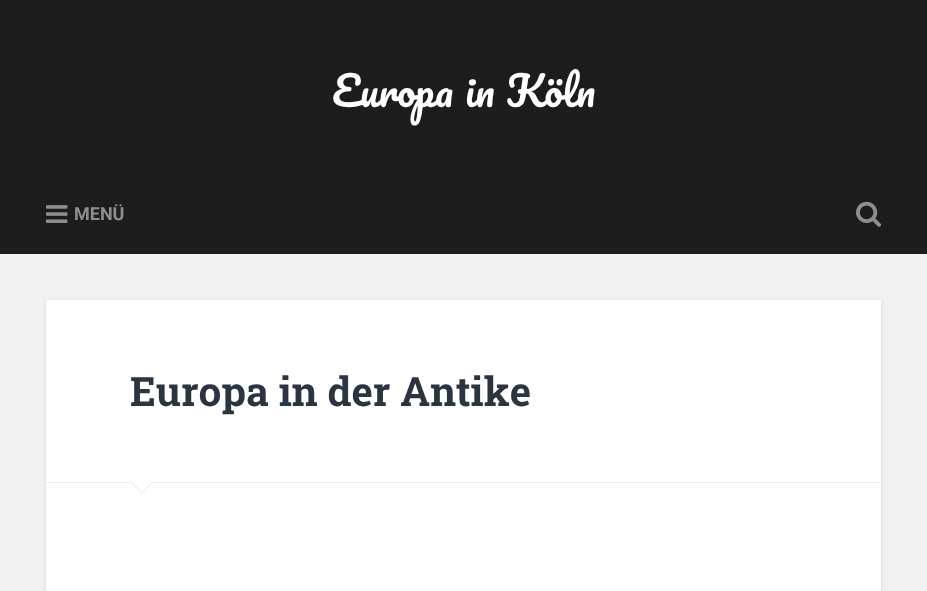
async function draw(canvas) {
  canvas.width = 927
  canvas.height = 591
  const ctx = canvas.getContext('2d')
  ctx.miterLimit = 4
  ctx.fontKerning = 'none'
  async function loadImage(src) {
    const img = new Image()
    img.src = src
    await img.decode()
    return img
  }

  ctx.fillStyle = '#f1f1f1'
  ctx.fillRect(0, 0, 927, 591)
  ctx.fillStyle = '#1d1d1d'
  ctx.fillRect(0, 0, 927, 254)
  ctx.wordSpacing = '1px'
  ctx.font = '40.5px Pacifico'
  ctx.fillStyle = '#fff'
  ctx.fillText('Europa in Köln', 332, 107)
  ctx.drawImage(await loadImage('image0.png'), 46, 205, 22, 18)
  ctx.wordSpacing = '0px'
  ctx.font = 'bold 18px Roboto'
  ctx.fillStyle = '#8e8e8e'
  ctx.fillText('MENÜ', 74, 220)
  ctx.drawImage(await loadImage('image1.png'), 856, 201, 25, 26)
  ctx.fillStyle = '#0000001a'
  ctx.filter = 'blur(2px)'
  ctx.beginPath()
  ctx.roundRect(46, 301, 835, 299, 3)
  ctx.fill()
  ctx.filter = 'none'
  ctx.fillStyle = '#fff'
  ctx.beginPath()
  ctx.roundRect(46, 300, 835, 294, 3)
  ctx.fill()
  ctx.fillStyle = '#eee'
  ctx.fillRect(46, 482, 835, 1)
  ctx.font = 'bold 40.5px Roboto Slab'
  ctx.fillStyle = '#2b3542'
  ctx.fillText('Europa in der Antike', 130, 406)
  ctx.fillStyle = '#eee'
  ctx.beginPath()
  ctx.moveTo(130, 482)
  ctx.lineTo(154, 482)
  ctx.lineTo(142, 494)
  ctx.closePath()
  ctx.fill()
  ctx.fillStyle = '#fff'
  ctx.beginPath()
  ctx.moveTo(131, 481)
  ctx.lineTo(153, 481)
  ctx.lineTo(142, 492)
  ctx.closePath()
  ctx.fill()
}

draw(document.querySelector('canvas'))
